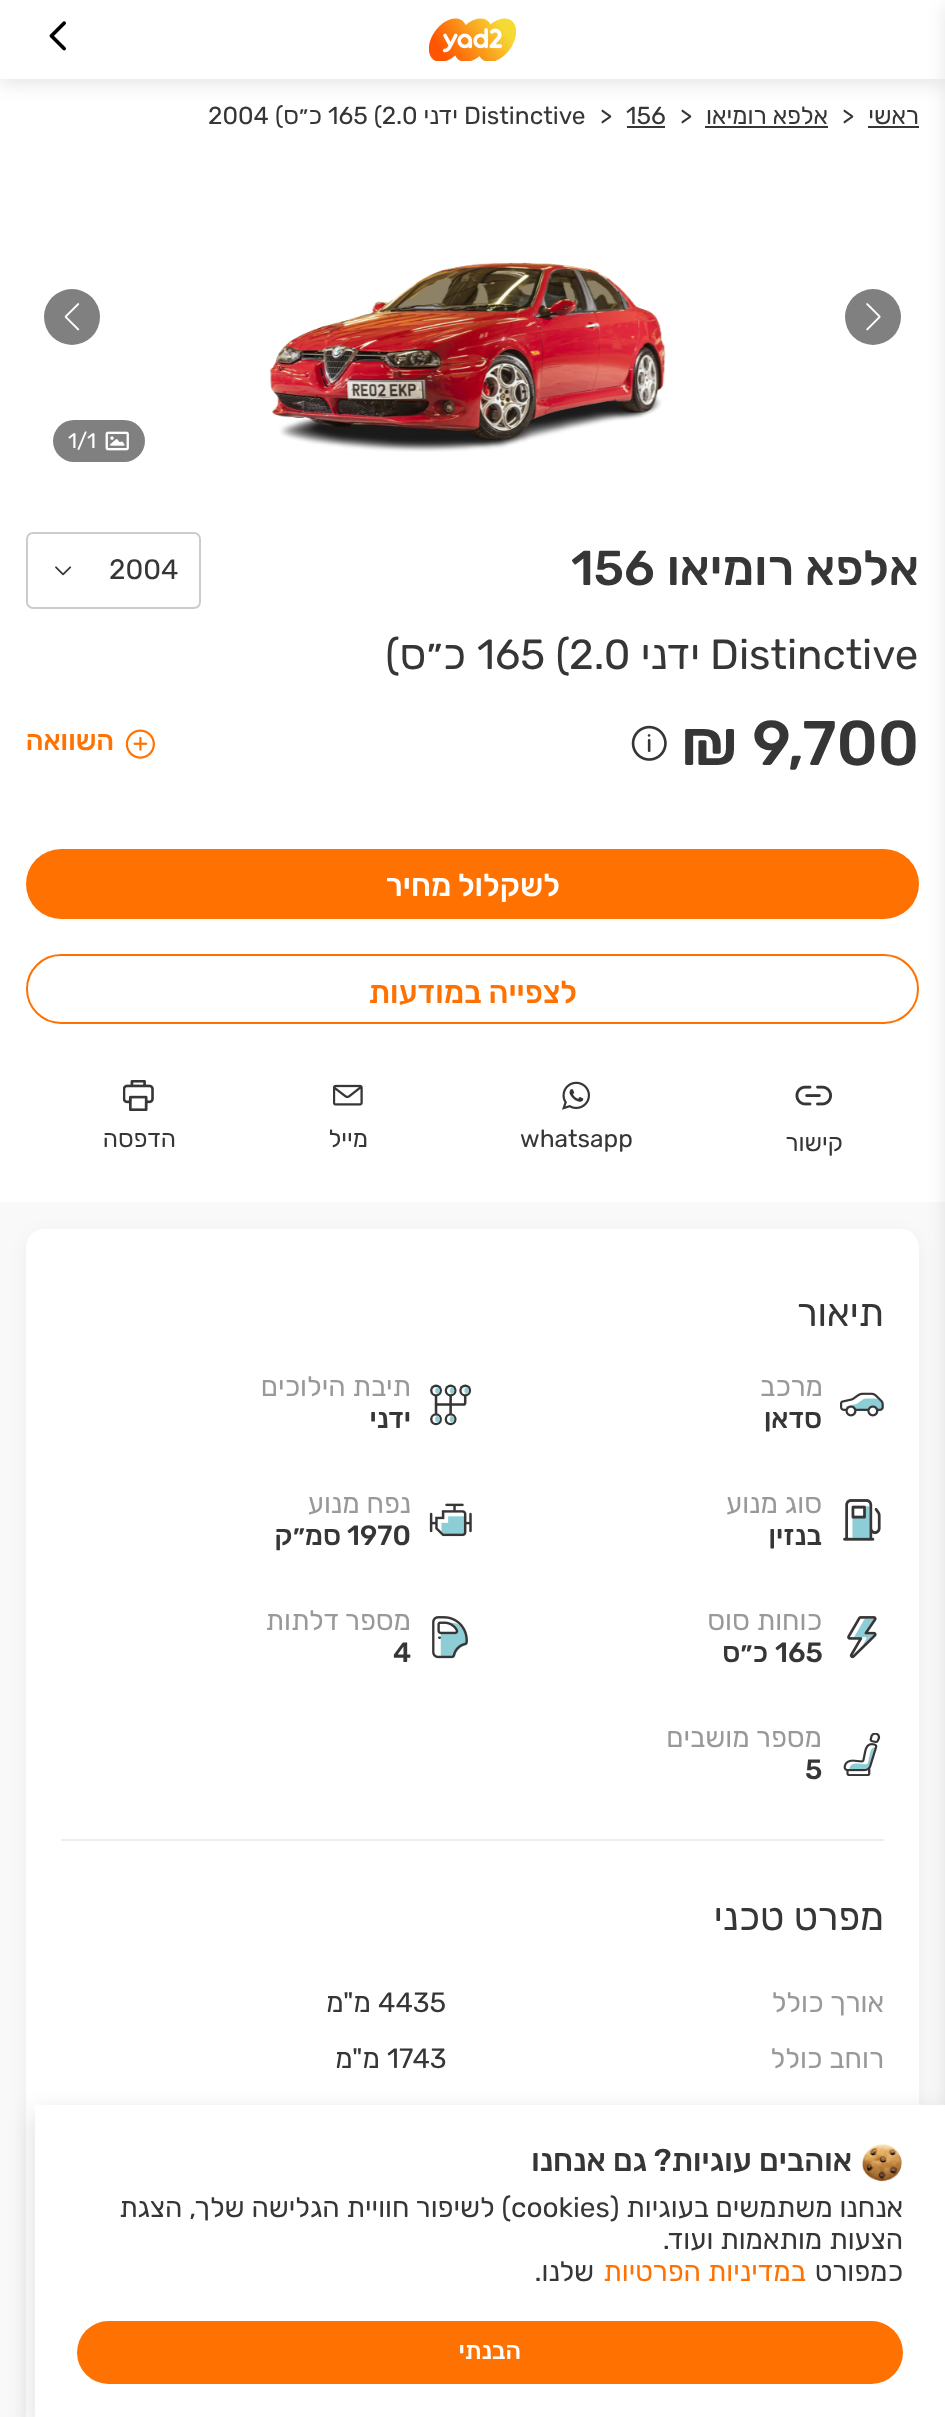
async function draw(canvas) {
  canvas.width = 945
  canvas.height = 2417
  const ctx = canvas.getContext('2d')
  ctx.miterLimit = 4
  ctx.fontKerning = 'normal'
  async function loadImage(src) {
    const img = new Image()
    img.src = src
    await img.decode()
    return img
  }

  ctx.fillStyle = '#fff'
  ctx.fillRect(0, 0, 945, 2417)
  ctx.fillStyle = '#0000001a'
  ctx.filter = 'blur(9px)'
  ctx.beginPath()
  ctx.rect(0, 5, 945, 79)
  ctx.fill()
  ctx.filter = 'none'
  ctx.fillStyle = '#fff'
  ctx.fillRect(0, 0, 945, 79)
  ctx.drawImage(await loadImage('image0.png'), 429, 18, 87, 43)
  ctx.drawImage(await loadImage('image1.png'), 49, 21, 17, 30)
  ctx.fillStyle = '#363636'
  ctx.fillRect(868, 126, 51, 2)
  ctx.fillStyle = '#ff7100'
  ctx.beginPath()
  ctx.roundRect(26, 849, 893, 70, 35)
  ctx.fill()
  ctx.beginPath()
  ctx.roundRect(27, 955, 891, 68, 34)
  ctx.strokeStyle = '#ff7100'
  ctx.lineWidth = 2
  ctx.stroke()
  ctx.fillStyle = '#f9f9f9'
  ctx.fillRect(0, 1202, 945, 1215)
  ctx.fillStyle = '#0000000d'
  ctx.filter = 'blur(9px)'
  ctx.beginPath()
  ctx.roundRect(26, 1234, 893, 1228, 18)
  ctx.fill()
  ctx.filter = 'none'
  ctx.fillStyle = '#fff'
  ctx.beginPath()
  ctx.roundRect(26, 1229, 893, 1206, 18)
  ctx.fill()
  ctx.fillStyle = '#0000001a'
  ctx.filter = 'blur(9px)'
  ctx.beginPath()
  ctx.rect(945, 5, 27, 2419)
  ctx.fill()
  ctx.filter = 'none'
  ctx.direction = 'rtl'
  ctx.font = '24.5px Rubik'
  ctx.fillStyle = '#363636'
  ctx.fillText('ראשי', 919, 124)
  ctx.direction = 'ltr'
  ctx.fillText('>', 842, 124)
  ctx.direction = 'rtl'
  ctx.fillText('אלפא רומיאו', 828, 124)
  ctx.fillRect(705, 126, 123, 2)
  ctx.direction = 'ltr'
  ctx.fillText('>', 680, 124)
  ctx.fillText('156', 626, 124)
  ctx.fillRect(627, 126, 38, 2)
  ctx.fillText('>', 600, 124)
  ctx.fillText('Distinctive', 464, 124)
  ctx.direction = 'rtl'
  ctx.fillText('ידני', 458, 124)
  ctx.direction = 'ltr'
  ctx.fillText('165 (2.0', 328, 124)
  ctx.direction = 'rtl'
  ctx.fillText('כ״ס)', 322, 124)
  ctx.direction = 'ltr'
  ctx.fillText('2004', 208, 124)
  ctx.fillStyle = '#808080'
  ctx.beginPath()
  ctx.arc(873, 317, 28, 0, 2 * Math.PI)
  ctx.fill()
  ctx.drawImage(await loadImage('image2.png'), 866, 303, 15, 28)
  ctx.drawImage(await loadImage('image3.png'), 269, 262, 397, 190)
  ctx.beginPath()
  ctx.arc(72, 317, 28, 0, 2 * Math.PI)
  ctx.fill()
  ctx.drawImage(await loadImage('image4.png'), 64, 303, 16, 28)
  ctx.beginPath()
  ctx.roundRect(53, 420, 92, 42, 21)
  ctx.fill()
  ctx.drawImage(await loadImage('image5.png'), 105, 431, 24, 20)
  ctx.font = '21px Rubik'
  ctx.fillStyle = '#fff'
  ctx.fillText('1/1', 68, 448)
  ctx.direction = 'rtl'
  ctx.font = '500 49px Rubik'
  ctx.fillStyle = '#363636'
  ctx.fillText('אלפא רומיאו', 919, 585)
  ctx.direction = 'ltr'
  ctx.fillText('156', 571, 585)
  ctx.font = '42px Rubik'
  ctx.fillText('Distinctive', 710, 669)
  ctx.direction = 'rtl'
  ctx.fillText('ידני', 700, 669)
  ctx.direction = 'ltr'
  ctx.fillText('165 (2.0', 477, 669)
  ctx.direction = 'rtl'
  ctx.fillText('כ״ס)', 466, 669)
  ctx.beginPath()
  ctx.roundRect(27, 533, 173, 75, 6)
  ctx.strokeStyle = '#ccc'
  ctx.stroke()
  ctx.direction = 'ltr'
  ctx.font = '28px Rubik'
  ctx.fillText('2004', 109, 579)
  ctx.drawImage(await loadImage('image6.png'), 55, 566, 17, 10)
  ctx.font = '500 63px Rubik'
  ctx.fillText('₪ 9,700', 681, 765)
  ctx.drawImage(await loadImage('image7.png'), 631, 725, 36, 36)
  ctx.drawImage(await loadImage('image8.png'), 125, 729, 30, 30)
  ctx.direction = 'rtl'
  ctx.font = '500 28px Rubik'
  ctx.fillStyle = '#ff7100'
  ctx.fillText('השוואה', 114, 750)
  ctx.font = '500 31.5px Rubik'
  ctx.fillStyle = '#fff'
  ctx.fillText('לשקלול מחיר', 560, 896)
  ctx.fillStyle = '#ff7100'
  ctx.fillText('לצפייה במודעות', 577, 1003)
  ctx.drawImage(await loadImage('image9.png'), 795, 1085, 37, 21)
  ctx.font = '24.5px Rubik'
  ctx.fillStyle = '#363636'
  ctx.fillText('קישור', 843, 1151)
  ctx.drawImage(await loadImage('image10.png'), 562, 1081, 28, 29)
  ctx.direction = 'ltr'
  ctx.fillText('whatsapp', 520, 1147)
  ctx.drawImage(await loadImage('image11.png'), 333, 1084, 30, 22)
  ctx.direction = 'rtl'
  ctx.fillText('מייל', 368, 1147)
  ctx.drawImage(await loadImage('image12.png'), 123, 1080, 31, 31)
  ctx.fillText('הדפסה', 176, 1147)
  ctx.fillStyle = '#eee'
  ctx.fillRect(61, 1839, 823, 2)
  ctx.font = '38.5px Rubik'
  ctx.fillStyle = '#363636'
  ctx.fillText('תיאור', 884, 1326)
  ctx.drawImage(await loadImage('image13.png'), 840, 1392, 44, 25)
  ctx.font = '28px Rubik'
  ctx.fillStyle = '#999'
  ctx.fillText('מרכב', 823, 1396)
  ctx.font = '500 28px Rubik'
  ctx.fillStyle = '#363636'
  ctx.fillText('סדאן', 822, 1428)
  ctx.drawImage(await loadImage('image14.png'), 430, 1384, 42, 42)
  ctx.font = '28px Rubik'
  ctx.fillStyle = '#999'
  ctx.fillText('תיבת הילוכים', 411, 1396)
  ctx.font = '500 28px Rubik'
  ctx.fillStyle = '#363636'
  ctx.fillText('ידני', 411, 1428)
  ctx.drawImage(await loadImage('image15.png'), 843, 1499, 38, 42)
  ctx.font = '28px Rubik'
  ctx.fillStyle = '#999'
  ctx.fillText('סוג מנוע', 822, 1513)
  ctx.font = '500 28px Rubik'
  ctx.fillStyle = '#363636'
  ctx.fillText('בנזין', 822, 1545)
  ctx.drawImage(await loadImage('image16.png'), 429, 1503, 43, 34)
  ctx.font = '28px Rubik'
  ctx.fillStyle = '#999'
  ctx.fillText('נפח מנוע', 411, 1513)
  ctx.direction = 'ltr'
  ctx.font = '500 28px Rubik'
  ctx.fillStyle = '#363636'
  ctx.fillText('1970', 347, 1545)
  ctx.direction = 'rtl'
  ctx.fillText('סמ״ק', 341, 1545)
  ctx.drawImage(await loadImage('image17.png'), 847, 1616, 30, 43)
  ctx.font = '28px Rubik'
  ctx.fillStyle = '#999'
  ctx.fillText('כוחות סוס', 822, 1630)
  ctx.direction = 'ltr'
  ctx.font = '500 28px Rubik'
  ctx.fillStyle = '#363636'
  ctx.fillText('165', 775, 1662)
  ctx.direction = 'rtl'
  ctx.fillText('כ״ס', 768, 1662)
  ctx.drawImage(await loadImage('image18.png'), 432, 1616, 36, 43)
  ctx.font = '28px Rubik'
  ctx.fillStyle = '#999'
  ctx.fillText('מספר דלתות', 411, 1630)
  ctx.direction = 'ltr'
  ctx.font = '500 28px Rubik'
  ctx.fillStyle = '#363636'
  ctx.fillText('4', 393, 1662)
  ctx.drawImage(await loadImage('image19.png'), 843, 1733, 38, 43)
  ctx.direction = 'rtl'
  ctx.font = '28px Rubik'
  ctx.fillStyle = '#999'
  ctx.fillText('מספר מושבים', 822, 1747)
  ctx.direction = 'ltr'
  ctx.font = '500 28px Rubik'
  ctx.fillStyle = '#363636'
  ctx.fillText('5', 805, 1779)
  ctx.direction = 'rtl'
  ctx.font = '38.5px Rubik'
  ctx.fillText('מפרט טכני', 884, 1930)
  ctx.font = '28px Rubik'
  ctx.fillStyle = '#999'
  ctx.fillText('אורך כולל', 884, 2012)
  ctx.direction = 'ltr'
  ctx.fillStyle = '#363636'
  ctx.fillText('4435', 378, 2012)
  ctx.direction = 'rtl'
  ctx.fillText('מ"מ', 371, 2012)
  ctx.fillStyle = '#999'
  ctx.fillText('רוחב כולל', 884, 2068)
  ctx.direction = 'ltr'
  ctx.fillStyle = '#363636'
  ctx.fillText('1743', 387, 2068)
  ctx.direction = 'rtl'
  ctx.fillText('מ"מ', 380, 2068)
  ctx.fillStyle = '#00000026'
  ctx.filter = 'blur(13px)'
  ctx.beginPath()
  ctx.rect(35, 2114, 910, 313)
  ctx.fill()
  ctx.filter = 'none'
  ctx.fillStyle = '#fff'
  ctx.fillRect(35, 2105, 910, 312)
  ctx.drawImage(await loadImage('image20.png'), 862, 2144, 40, 38)
  ctx.font = '500 31.5px Rubik'
  ctx.fillStyle = '#363636'
  ctx.fillText('אוהבים עוגיות? גם אנחנו', 852, 2171)
  ctx.font = '28px Rubik'
  ctx.fillText('אנחנו משתמשים בעוגיות (', 903, 2217)
  ctx.direction = 'ltr'
  ctx.fillText('cookies', 511, 2217)
  ctx.direction = 'rtl'
  ctx.fillText(') לשיפור חוויית הגלישה שלך, הצגת', 511, 2217)
  ctx.fillText('הצעות מותאמות ועוד.', 903, 2249)
  ctx.fillText('כמפורט', 903, 2281)
  ctx.fillStyle = '#ff7100'
  ctx.fillText('במדיניות הפרטיות', 806, 2281)
  ctx.fillStyle = '#363636'
  ctx.fillText('שלנו.', 594, 2281)
  ctx.fillStyle = '#ff7100'
  ctx.beginPath()
  ctx.roundRect(77, 2321, 826, 63, 31.5)
  ctx.fill()
  ctx.font = '500 24.5px Rubik'
  ctx.fillStyle = '#fff'
  ctx.fillText('הבנתי', 521, 2359)
}

draw(document.querySelector('canvas'))
